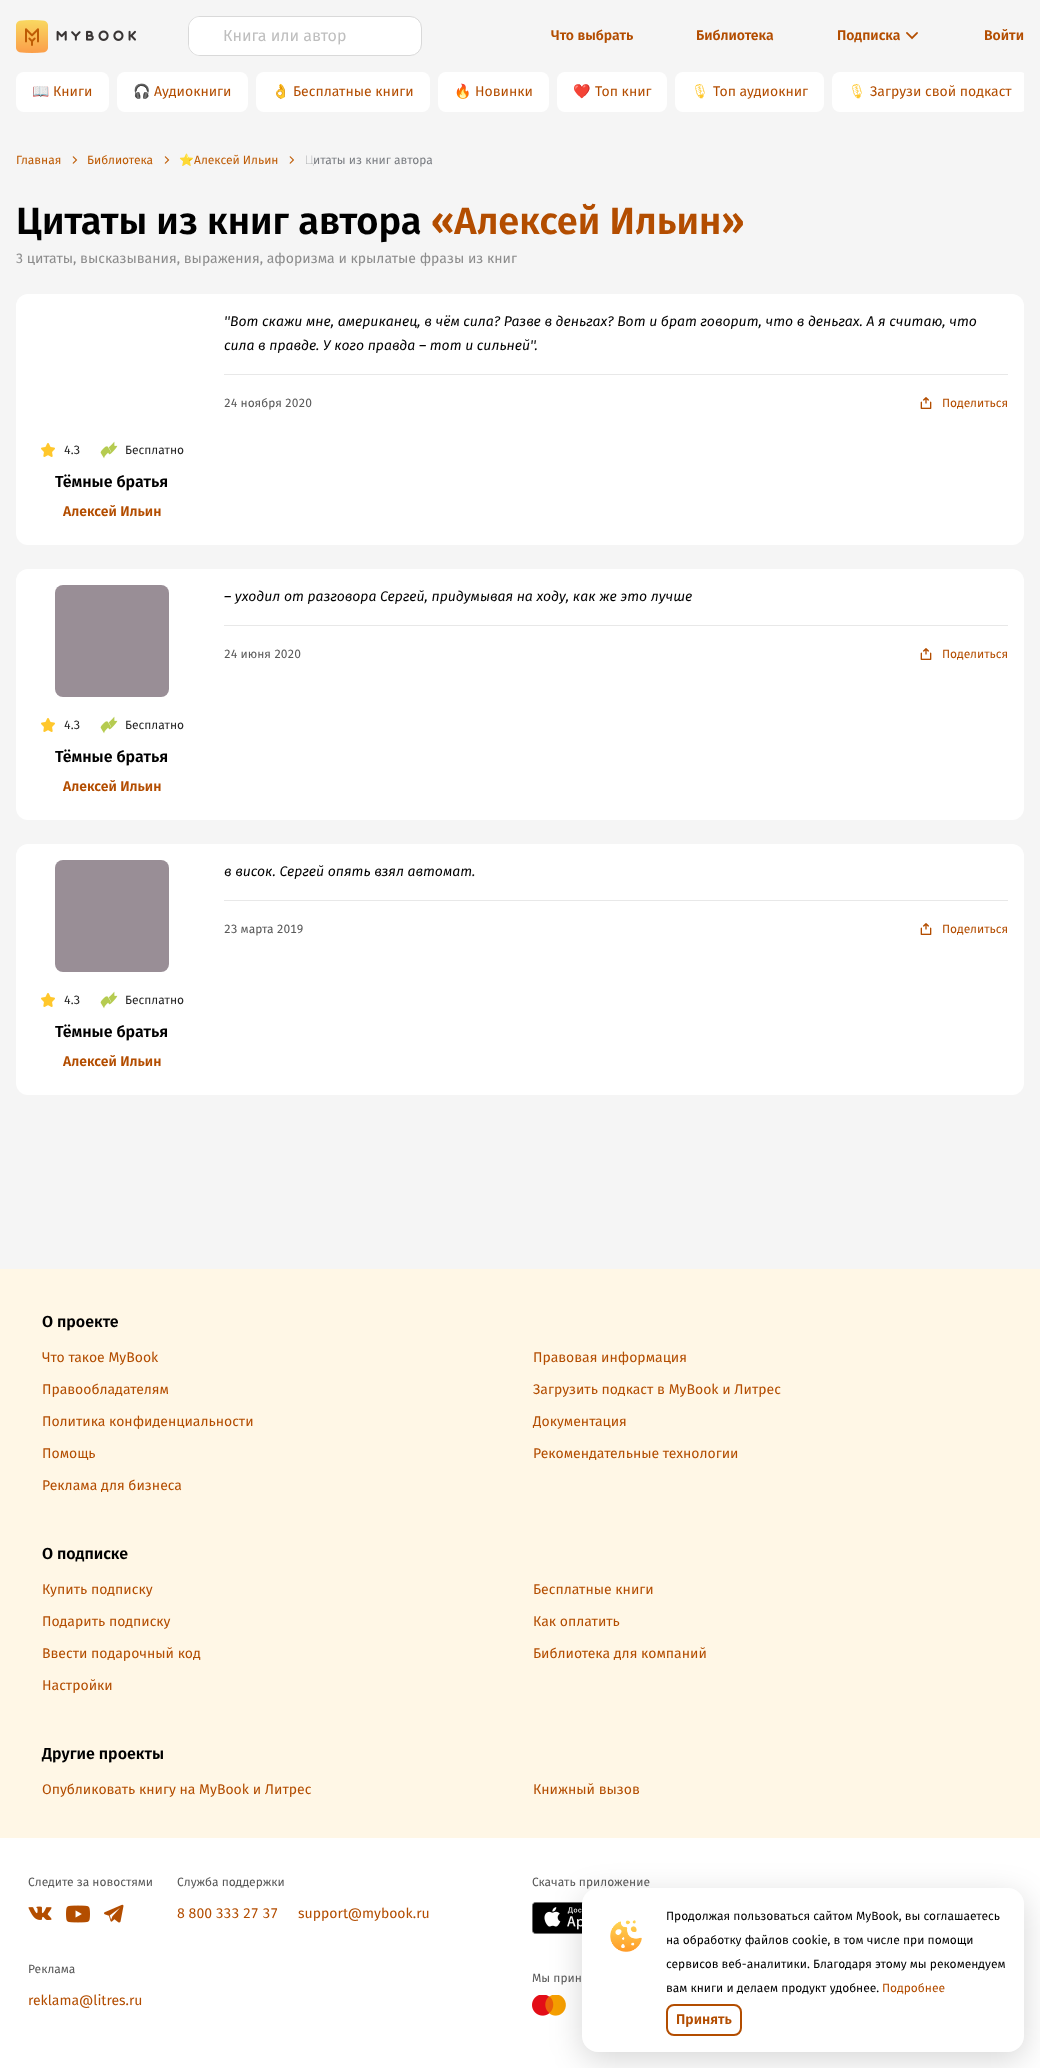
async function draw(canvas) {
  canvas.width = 1040
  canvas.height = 2068
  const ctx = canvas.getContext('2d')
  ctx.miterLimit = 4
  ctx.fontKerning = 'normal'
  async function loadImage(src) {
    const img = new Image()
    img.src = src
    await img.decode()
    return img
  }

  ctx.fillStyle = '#f5f5f5'
  ctx.fillRect(0, 0, 1040, 2068)
  ctx.drawImage(await loadImage('image0.png'), 16, 20, 32, 33)
  ctx.drawImage(await loadImage('image1.png'), 56, 30, 80, 11)
  ctx.fillStyle = '#fff'
  ctx.beginPath()
  ctx.roundRect(188.5, 16.5, 233, 39, 11.5)
  ctx.fill()
  ctx.strokeStyle = '#d9d9d9'
  ctx.stroke()
  ctx.beginPath()
  ctx.roundRect(189, 17, 192, 38, [11, 8, 8, 11])
  ctx.fill()
  ctx.font = '16px Fira Sans'
  ctx.fillStyle = '#bfbfbf'
  ctx.fillText('Книга или автор', 223, 41)
  ctx.font = '600 14px Fira Sans'
  ctx.fillStyle = '#b34d00'
  ctx.fillText('Что выбрать', 551, 40)
  ctx.fillText('Библиотека', 696, 40)
  ctx.fillText('Подписка', 837, 40)
  ctx.drawImage(await loadImage('image2.png'), 906, 32, 12, 8)
  ctx.fillText('Войти', 984, 40)
  ctx.fillStyle = '#fff'
  ctx.beginPath()
  ctx.roundRect(16, 72, 93, 40, 8)
  ctx.fill()
  ctx.font = '14px Noto Color Emoji'
  ctx.fillStyle = '#ffc72c'
  ctx.fillText('📖', 32, 96)
  ctx.font = '14px Fira Sans'
  ctx.fillStyle = '#b34d00'
  ctx.fillText('Книги', 53, 96)
  ctx.fillStyle = '#fff'
  ctx.beginPath()
  ctx.roundRect(117, 72, 131, 40, 8)
  ctx.fill()
  ctx.font = '14px Noto Color Emoji'
  ctx.fillStyle = '#ffc72c'
  ctx.fillText('🎧', 133, 96)
  ctx.font = '14px Fira Sans'
  ctx.fillStyle = '#b34d00'
  ctx.fillText('Аудиокниги', 154, 96)
  ctx.fillStyle = '#fff'
  ctx.beginPath()
  ctx.roundRect(256, 72, 174, 40, 8)
  ctx.fill()
  ctx.font = '14px Noto Color Emoji'
  ctx.fillStyle = '#ffc72c'
  ctx.fillText('👌', 272, 96)
  ctx.font = '14px Fira Sans'
  ctx.fillStyle = '#b34d00'
  ctx.fillText('Бесплатные книги', 293, 96)
  ctx.fillStyle = '#fff'
  ctx.beginPath()
  ctx.roundRect(438, 72, 111, 40, 8)
  ctx.fill()
  ctx.font = '14px Noto Color Emoji'
  ctx.fillStyle = '#ffc72c'
  ctx.fillText('🔥', 454, 96)
  ctx.font = '14px Fira Sans'
  ctx.fillStyle = '#b34d00'
  ctx.fillText('Новинки', 475, 96)
  ctx.fillStyle = '#fff'
  ctx.beginPath()
  ctx.roundRect(557, 72, 110, 40, 8)
  ctx.fill()
  ctx.font = '14px Noto Color Emoji'
  ctx.fillStyle = '#ffc72c'
  ctx.fillText('❤️', 573, 96)
  ctx.font = '14px Fira Sans'
  ctx.fillStyle = '#b34d00'
  ctx.fillText('Топ книг', 595, 96)
  ctx.fillStyle = '#fff'
  ctx.beginPath()
  ctx.roundRect(675, 72, 149, 40, 8)
  ctx.fill()
  ctx.font = '14px Noto Emoji'
  ctx.fillStyle = '#ffc72c'
  ctx.fillText('🎙', 691, 96)
  ctx.font = '14px Fira Sans'
  ctx.fillStyle = '#b34d00'
  ctx.fillText('Топ аудиокниг', 713, 96)
  ctx.save()
  ctx.beginPath()
  ctx.rect(16, 72, 1008, 48)
  ctx.clip()
  ctx.fillStyle = '#fff'
  ctx.beginPath()
  ctx.roundRect(832, 72, 196, 40, 8)
  ctx.fill()
  ctx.restore()
  ctx.font = '14px Noto Emoji'
  ctx.fillStyle = '#ffc72c'
  ctx.fillText('🎙', 848, 96)
  ctx.font = '14px Fira Sans'
  ctx.fillStyle = '#b34d00'
  ctx.fillText('Загрузи свой подкаст', 870, 96)
  ctx.fillStyle = '#fff'
  ctx.fillRect(0, 1838, 1040, 230)
  ctx.drawImage(await loadImage('image14.png'), 532, 1902, 51, 32)
  ctx.drawImage(await loadImage('image15.png'), 532, 1995, 34, 21)
  ctx.fillStyle = '#00000029'
  ctx.filter = 'blur(16px)'
  ctx.beginPath()
  ctx.roundRect(582, 1896, 442, 164, 16)
  ctx.fill()
  ctx.filter = 'none'
  ctx.font = '12px Fira Sans'
  ctx.fillStyle = '#595959'
  ctx.fillText('Скачать приложение', 532, 1886)
  ctx.fillStyle = '#fff'
  ctx.beginPath()
  ctx.roundRect(582, 1888, 442, 164, 16)
  ctx.fill()
  ctx.drawImage(await loadImage('image3.png'), 610, 1920, 32, 32)
  ctx.fillStyle = '#000'
  ctx.fillText('Продолжая пользоваться сайтом MyBook, вы соглашаетесь', 666, 1920)
  ctx.fillText('на обработку файлов cookie, в том числе при помощи', 666, 1944)
  ctx.fillText('сервисов веб-аналитики. Благодаря этому мы рекомендуем', 666, 1968)
  ctx.fillText('вам книги и делаем продукт удобнее.', 666, 1992)
  ctx.fillStyle = '#b34d00'
  ctx.fillText('Подробнее', 882, 1992)
  ctx.beginPath()
  ctx.roundRect(667, 2005, 74, 30, 7)
  ctx.strokeStyle = '#b34d00'
  ctx.lineWidth = 2
  ctx.stroke()
  ctx.font = '600 14px Fira Sans'
  ctx.fillText('Принять', 676, 2024)
  ctx.font = '12px Fira Sans'
  ctx.fillStyle = '#be5b04'
  ctx.fillText('Главная', 16, 164)
  ctx.drawImage(await loadImage('image4.png'), 72, 156, 6, 8)
  ctx.fillText('Библиотека', 87, 164)
  ctx.drawImage(await loadImage('image5.png'), 164, 156, 6, 8)
  ctx.font = '12px Noto Color Emoji'
  ctx.fillText('⭐️', 179, 164)
  ctx.font = '12px Fira Sans'
  ctx.fillText('Алексей Ильин', 194, 164)
  ctx.drawImage(await loadImage('image6.png'), 289, 156, 5, 8)
  ctx.font = '100 12px Noto Sans'
  ctx.fillStyle = '#7c7f84'
  ctx.fillText('Ц', 305, 164)
  ctx.font = '12px Fira Sans'
  ctx.fillText('итаты из книг автора', 313, 164)
  ctx.font = '600 38px Fira Sans'
  ctx.fillStyle = '#000'
  ctx.fillText('Цитаты из книг автора', 16, 234)
  ctx.fillStyle = '#b34d00'
  ctx.fillText('«Алексей Ильин»', 431, 234)
  ctx.font = '14px Fira Sans'
  ctx.fillStyle = '#8c8c8c'
  ctx.fillText('3 цитаты, высказывания, выражения, афоризма и крылатые фразы из книг', 16, 263)
  ctx.fillStyle = '#fff'
  ctx.beginPath()
  ctx.roundRect(16, 294, 1008, 251, 12)
  ctx.fill()
  ctx.font = 'italic 14px Fira Sans'
  ctx.fillStyle = '#000'
  ctx.fillText('\'\'Вот скажи мне, американец, в чём сила? Разве в деньгах? Вот и брат говорит, что в деньгах. А я считаю, что', 224, 326)
  ctx.fillText('сила в правде. У кого правда – тот и сильней\'\'.', 224, 350)
  ctx.fillStyle = '#e8e8e8'
  ctx.fillRect(224, 374, 784, 1)
  ctx.font = '12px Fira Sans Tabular'
  ctx.fillStyle = '#595959'
  ctx.fillText('24 ноября 2020', 224, 407)
  ctx.drawImage(await loadImage('image7.png'), 920, 397, 12, 12)
  ctx.font = '12px Fira Sans'
  ctx.fillStyle = '#b34d00'
  ctx.fillText('Поделиться', 942, 407)
  ctx.drawImage(await loadImage('image8.png'), 41, 443, 14, 14)
  ctx.font = '12px Fira Sans Tabular'
  ctx.fillStyle = '#262626'
  ctx.fillText('4.3', 64, 454)
  ctx.drawImage(await loadImage('image9.png'), 100, 441, 18, 18)
  ctx.font = '12px Fira Sans'
  ctx.fillText('Бесплатно', 125, 454)
  ctx.font = '600 16px Fira Sans'
  ctx.fillStyle = '#000'
  ctx.fillText('Тёмные братья', 55, 487)
  ctx.font = '600 14px Fira Sans'
  ctx.fillStyle = '#b34d00'
  ctx.fillText('Алексей Ильин', 63, 516)
  ctx.fillStyle = '#fff'
  ctx.beginPath()
  ctx.roundRect(16, 569, 1008, 251, 12)
  ctx.fill()
  ctx.font = 'italic 14px Fira Sans'
  ctx.fillStyle = '#000'
  ctx.fillText('– уходил от разговора Сергей, придумывая на ходу, как же это лучше', 224, 601)
  ctx.fillStyle = '#e8e8e8'
  ctx.fillRect(224, 625, 784, 1)
  ctx.font = '12px Fira Sans Tabular'
  ctx.fillStyle = '#595959'
  ctx.fillText('24 июня 2020', 224, 658)
  ctx.drawImage(await loadImage('image7.png'), 920, 648, 12, 12)
  ctx.font = '12px Fira Sans'
  ctx.fillStyle = '#b34d00'
  ctx.fillText('Поделиться', 942, 658)
  ctx.drawImage(await loadImage('image10.png'), 55, 585, 114, 112)
  ctx.drawImage(await loadImage('image8.png'), 41, 718, 14, 14)
  ctx.font = '12px Fira Sans Tabular'
  ctx.fillStyle = '#262626'
  ctx.fillText('4.3', 64, 729)
  ctx.drawImage(await loadImage('image9.png'), 100, 716, 18, 18)
  ctx.font = '12px Fira Sans'
  ctx.fillText('Бесплатно', 125, 729)
  ctx.font = '600 16px Fira Sans'
  ctx.fillStyle = '#000'
  ctx.fillText('Тёмные братья', 55, 762)
  ctx.font = '600 14px Fira Sans'
  ctx.fillStyle = '#b34d00'
  ctx.fillText('Алексей Ильин', 63, 791)
  ctx.fillStyle = '#fff'
  ctx.beginPath()
  ctx.roundRect(16, 844, 1008, 251, 12)
  ctx.fill()
  ctx.font = 'italic 14px Fira Sans'
  ctx.fillStyle = '#000'
  ctx.fillText('в висок. Сергей опять взял автомат.', 224, 876)
  ctx.fillStyle = '#e8e8e8'
  ctx.fillRect(224, 900, 784, 1)
  ctx.font = '12px Fira Sans Tabular'
  ctx.fillStyle = '#595959'
  ctx.fillText('23 марта 2019', 224, 933)
  ctx.drawImage(await loadImage('image7.png'), 920, 923, 12, 12)
  ctx.font = '12px Fira Sans'
  ctx.fillStyle = '#b34d00'
  ctx.fillText('Поделиться', 942, 933)
  ctx.drawImage(await loadImage('image10.png'), 55, 860, 114, 112)
  ctx.drawImage(await loadImage('image8.png'), 41, 993, 14, 14)
  ctx.font = '12px Fira Sans Tabular'
  ctx.fillStyle = '#262626'
  ctx.fillText('4.3', 64, 1004)
  ctx.drawImage(await loadImage('image9.png'), 100, 991, 18, 18)
  ctx.font = '12px Fira Sans'
  ctx.fillText('Бесплатно', 125, 1004)
  ctx.font = '600 16px Fira Sans'
  ctx.fillStyle = '#000'
  ctx.fillText('Тёмные братья', 55, 1037)
  ctx.font = '600 14px Fira Sans'
  ctx.fillStyle = '#b34d00'
  ctx.fillText('Алексей Ильин', 63, 1066)
  ctx.fillStyle = '#fff7e6'
  ctx.fillRect(0, 1269, 1040, 569)
  ctx.font = '600 16px Fira Sans'
  ctx.fillStyle = '#000'
  ctx.fillText('О проекте', 42, 1327)
  ctx.font = '14px Fira Sans'
  ctx.fillStyle = '#b34d00'
  ctx.fillText('Что такое MyBook', 42, 1362)
  ctx.fillText('Правовая информация', 533, 1362)
  ctx.fillText('Правообладателям', 42, 1394)
  ctx.fillText('Загрузить подкаст в MyBook и Литрес', 533, 1394)
  ctx.fillText('Политика конфиденциальности', 42, 1426)
  ctx.fillText('Документация', 533, 1426)
  ctx.fillText('Помощь', 42, 1458)
  ctx.fillText('Рекомендательные технологии', 533, 1458)
  ctx.fillText('Реклама для бизнеса', 42, 1490)
  ctx.font = '600 16px Fira Sans'
  ctx.fillStyle = '#000'
  ctx.fillText('О подписке', 42, 1559)
  ctx.font = '14px Fira Sans'
  ctx.fillStyle = '#b34d00'
  ctx.fillText('Купить подписку', 42, 1594)
  ctx.fillText('Бесплатные книги', 533, 1594)
  ctx.fillText('Подарить подписку', 42, 1626)
  ctx.fillText('Как оплатить', 533, 1626)
  ctx.fillText('Ввести подарочный код', 42, 1658)
  ctx.fillText('Библиотека для компаний', 533, 1658)
  ctx.fillText('Настройки', 42, 1690)
  ctx.font = '600 16px Fira Sans'
  ctx.fillStyle = '#000'
  ctx.fillText('Другие проекты', 42, 1759)
  ctx.font = '14px Fira Sans'
  ctx.fillStyle = '#b34d00'
  ctx.fillText('Опубликовать книгу на MyBook и Литрес', 42, 1794)
  ctx.fillText('Книжный вызов', 533, 1794)
  ctx.font = '12px Fira Sans'
  ctx.fillStyle = '#595959'
  ctx.fillText('Следите за новостями', 28, 1886)
  ctx.drawImage(await loadImage('image11.png'), 28, 1906, 24, 14)
  ctx.drawImage(await loadImage('image12.png'), 66, 1905, 24, 18)
  ctx.drawImage(await loadImage('image13.png'), 104, 1904, 20, 19)
  ctx.fillText('Служба поддержки', 177, 1886)
  ctx.font = '14px Fira Sans Tabular'
  ctx.fillStyle = '#b34d00'
  ctx.fillText('8 800 333 27 37', 177, 1918)
  ctx.font = '14px Fira Sans'
  ctx.fillText('support@mybook.ru', 298, 1918)
  ctx.font = '12px Fira Sans'
  ctx.fillStyle = '#595959'
  ctx.fillText('Реклама', 28, 1973)
  ctx.font = '14px Fira Sans'
  ctx.fillStyle = '#b34d00'
  ctx.fillText('reklama@litres.ru', 28, 2005)
  ctx.font = '12px Fira Sans'
  ctx.fillStyle = '#595959'
  ctx.fillText('Мы прин', 532, 1982)
}

draw(document.querySelector('canvas'))
